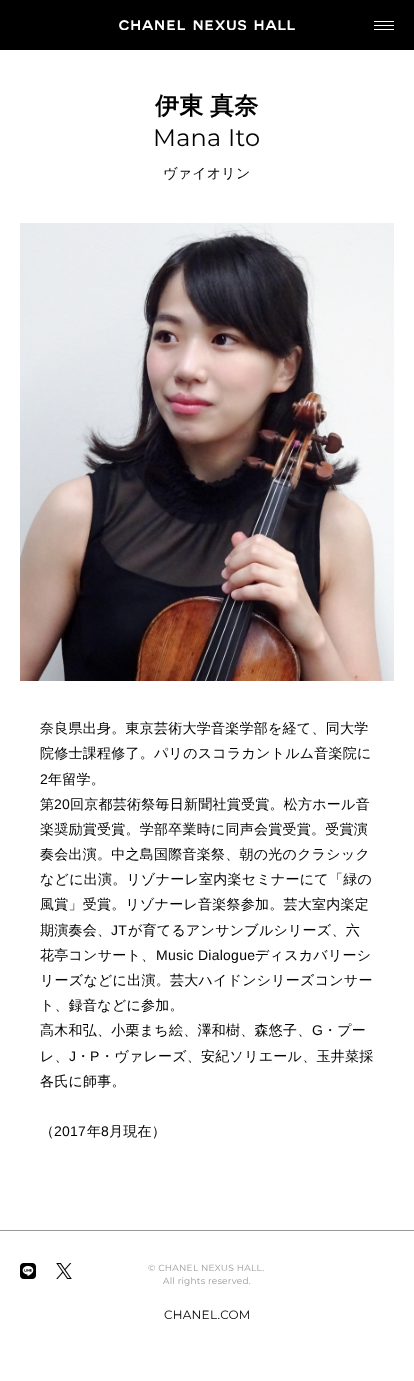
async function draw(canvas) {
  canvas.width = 414
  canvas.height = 1381
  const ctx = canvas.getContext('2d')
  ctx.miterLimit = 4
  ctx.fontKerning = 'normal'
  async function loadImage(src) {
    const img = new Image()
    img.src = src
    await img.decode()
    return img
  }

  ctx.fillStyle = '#fff'
  ctx.fillRect(0, 0, 414, 1381)
  ctx.fillStyle = '#000'
  ctx.fillRect(0, 0, 414, 50)
  ctx.drawImage(await loadImage('image0.png'), 119, 20, 176, 10)
  ctx.fillStyle = '#fff'
  ctx.fillRect(374, 21, 20, 1)
  ctx.fillRect(374, 25, 20, 1)
  ctx.fillRect(374, 29, 20, 1)
  ctx.letterSpacing = '0.25px'
  ctx.font = 'bold 24px WenQuanYi Zen Hei'
  ctx.fillStyle = '#000'
  ctx.fillText('伊東', 155, 114)
  ctx.fillText('真奈', 210, 114)
  ctx.font = '100 24px Montserrat'
  ctx.fillText('Mana Ito', 153, 146)
  ctx.font = '500 14px WenQuanYi Zen Hei'
  ctx.fillText('ヴァイオリン', 163, 178)
  ctx.drawImage(await loadImage('image1.png'), 20, 223, 374, 458)
  ctx.fillText('奈良県出身。東京芸術大学音楽学部を経て、同大学', 40, 733)
  ctx.fillText('院修士課程修了。パリのスコラカントルム音楽院に', 40, 758)
  ctx.font = '14px Liberation Sans'
  ctx.fillText('2', 40, 784)
  ctx.font = '500 14px WenQuanYi Zen Hei'
  ctx.fillText('年留学。', 48, 784)
  ctx.fillText('第', 40, 809)
  ctx.font = '14px Liberation Sans'
  ctx.fillText('20', 54, 809)
  ctx.font = '500 14px WenQuanYi Zen Hei'
  ctx.fillText('回京都芸術祭毎日新聞社賞受賞。松方ホール音', 70, 809)
  ctx.fillText('楽奨励賞受賞。学部卒業時に同声会賞受賞。受賞演', 40, 834)
  ctx.fillText('奏会出演。中之島国際音楽祭、朝の光のクラシック', 40, 859)
  ctx.fillText('などに出演。リゾナーレ室内楽セミナーにて「緑の', 40, 884)
  ctx.fillText('風賞」受賞。リゾナーレ音楽祭参加。芸大室内楽定', 40, 909)
  ctx.fillText('期演奏会、', 40, 935)
  ctx.font = '14px Liberation Sans'
  ctx.fillText('JT', 111, 935)
  ctx.font = '500 14px WenQuanYi Zen Hei'
  ctx.fillText('が育てるアンサンブルシリーズ、六', 128, 935)
  ctx.fillText('花亭コンサート、', 40, 960)
  ctx.font = '14px Liberation Sans'
  ctx.fillText('Music Dialogue', 156, 960)
  ctx.font = '500 14px WenQuanYi Zen Hei'
  ctx.fillText('ディスカバリーシ', 255, 960)
  ctx.fillText('リーズなどに出演。芸大ハイドンシリーズコンサー', 40, 985)
  ctx.fillText('ト、録音などに参加。', 40, 1010)
  ctx.fillText('高木和弘、小栗まち絵、澤和樹、森悠子、', 40, 1035)
  ctx.font = '14px Liberation Sans'
  ctx.fillText('G', 312, 1035)
  ctx.font = '500 14px WenQuanYi Zen Hei'
  ctx.fillText('・プー', 323, 1035)
  ctx.fillText('レ、', 40, 1061)
  ctx.font = '14px Liberation Sans'
  ctx.fillText('J', 69, 1061)
  ctx.font = '500 14px WenQuanYi Zen Hei'
  ctx.fillText('・', 76, 1061)
  ctx.font = '14px Liberation Sans'
  ctx.fillText('P', 90, 1061)
  ctx.font = '500 14px WenQuanYi Zen Hei'
  ctx.fillText('・ヴァレーズ、安紀ソリエール、玉井菜採', 100, 1061)
  ctx.fillText('各氏に師事。', 40, 1086)
  ctx.fillText('（', 40, 1136)
  ctx.font = '14px Liberation Sans'
  ctx.fillText('2017', 54, 1136)
  ctx.font = '500 14px WenQuanYi Zen Hei'
  ctx.fillText('年', 87, 1136)
  ctx.font = '14px Liberation Sans'
  ctx.fillText('8', 101, 1136)
  ctx.font = '500 14px WenQuanYi Zen Hei'
  ctx.fillText('月現在）', 109, 1136)
  ctx.fillStyle = '#999'
  ctx.fillRect(0, 1230, 414, 1)
  ctx.drawImage(await loadImage('image2.png'), 20, 1263, 16, 16)
  ctx.drawImage(await loadImage('image3.png'), 56, 1263, 16, 16)
  ctx.font = '100 9px Montserrat'
  ctx.fillText('© CHANEL NEXUS HALL.', 148, 1271)
  ctx.fillText('All rights reserved.', 163, 1284)
  ctx.font = '100 12px Montserrat'
  ctx.fillStyle = '#000'
  ctx.fillText('CHANEL.COM', 164, 1319)
}

draw(document.querySelector('canvas'))
